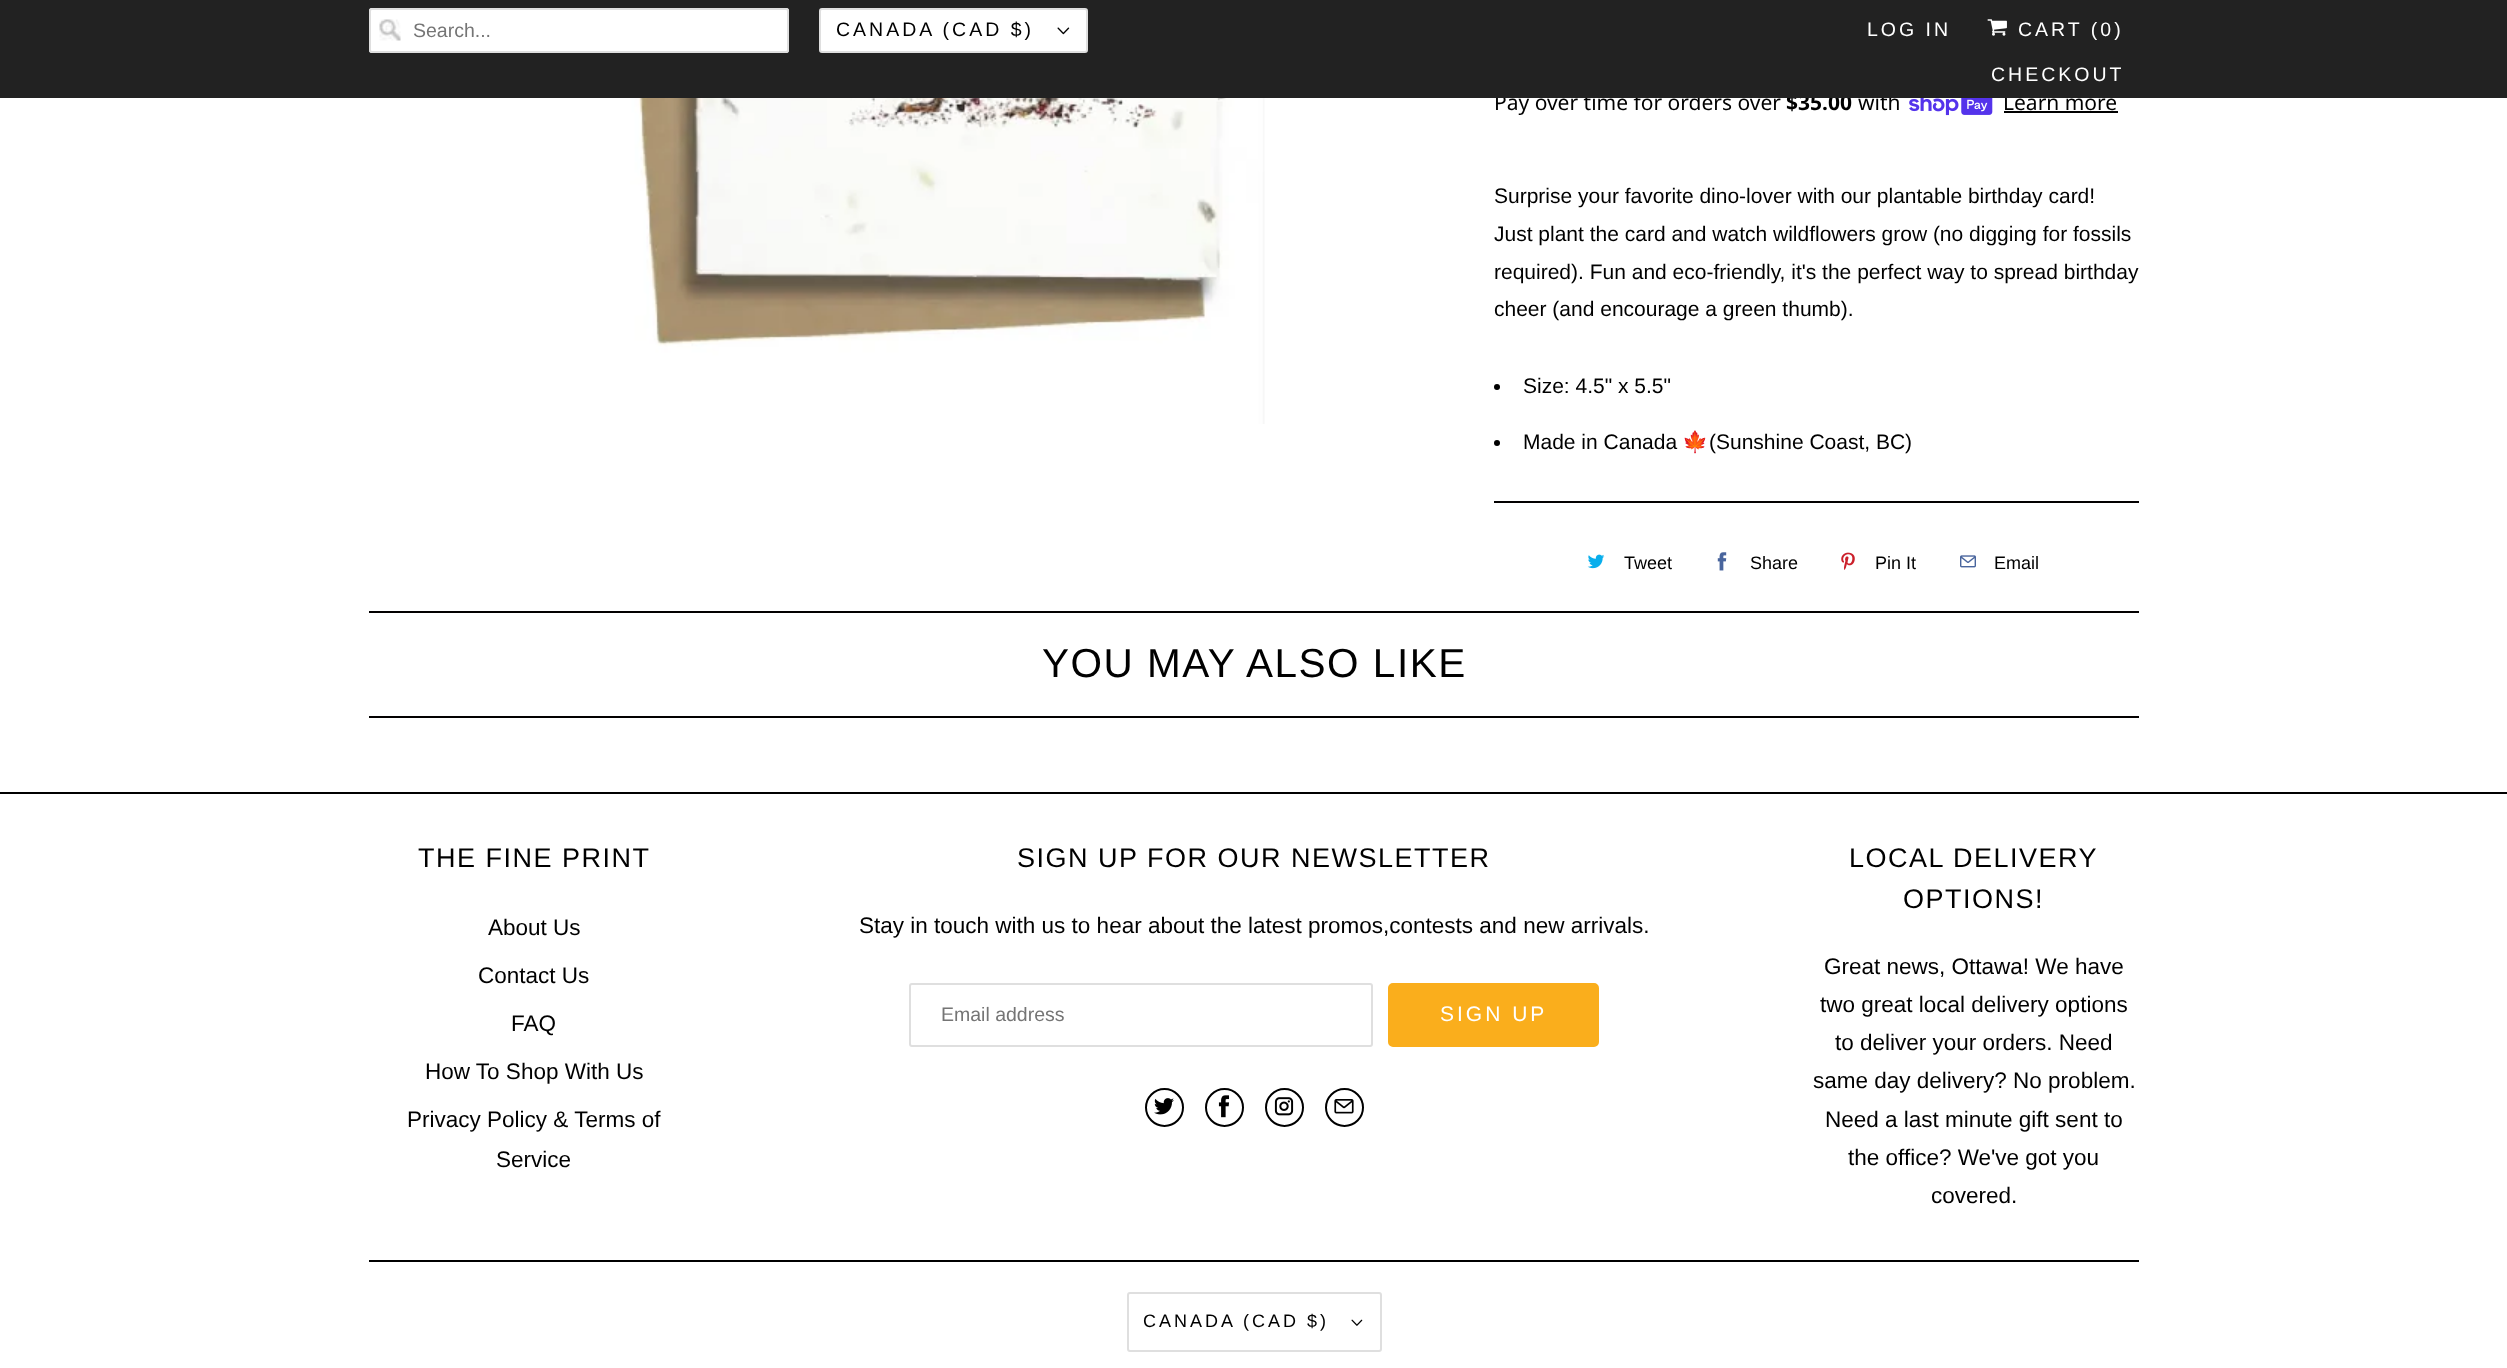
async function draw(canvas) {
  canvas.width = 2507
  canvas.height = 1368
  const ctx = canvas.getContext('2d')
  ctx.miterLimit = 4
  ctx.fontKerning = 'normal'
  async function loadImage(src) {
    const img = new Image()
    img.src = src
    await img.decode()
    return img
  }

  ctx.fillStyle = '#fff'
  ctx.fillRect(0, 0, 2507, 1368)
  ctx.font = '21px Noto Sans'
  ctx.fillStyle = '#000'
  ctx.fillText('Pay over time for orders over', 1494, 110)
  ctx.font = 'bold 21px Noto Sans'
  ctx.fillText('$35.00', 1786, 110)
  ctx.font = '21px Noto Sans'
  ctx.fillText('with', 1858, 110)
  ctx.fillText('Learn more', 2003, 110)
  ctx.fillStyle = '#222'
  ctx.fillRect(0, 0, 2507, 98)
  ctx.fillStyle = '#fff'
  ctx.beginPath()
  ctx.roundRect(369, 8, 420, 45, 3)
  ctx.fill()
  ctx.drawImage(await loadImage('image0.png'), 379, 19, 22, 22)
  ctx.beginPath()
  ctx.roundRect(370, 9, 418, 43, 2)
  ctx.strokeStyle = '#dfdfdf'
  ctx.lineWidth = 2
  ctx.stroke()
  ctx.font = '19.5px Liberation Sans'
  ctx.fillStyle = '#757575'
  ctx.fillText('Search...', 413, 37)
  ctx.fillStyle = '#fff'
  ctx.beginPath()
  ctx.roundRect(820, 9, 267, 43, 2)
  ctx.fill()
  ctx.stroke()
  ctx.letterSpacing = '3px'
  ctx.fillStyle = '#000'
  ctx.fillText('CANADA (CAD $)', 836, 36)
  ctx.drawImage(await loadImage('image1.png'), 1057, 27, 13, 8)
  ctx.fillStyle = '#fff'
  ctx.fillText('LOG IN', 1867, 36)
  ctx.drawImage(await loadImage('image2.png'), 1987, 19, 20, 17)
  ctx.fillText('CART (0)', 2018, 36)
  ctx.fillText('CHECKOUT', 1991, 81)
  ctx.drawImage(await loadImage('image3.png'), 630, 98, 635, 326)
  ctx.drawImage(await loadImage('image4.png'), 1909, 98, 84, 18)
  ctx.fillStyle = '#000'
  ctx.fillRect(2004, 111, 114, 2)
  ctx.letterSpacing = '0px'
  ctx.font = '21px Liberation Sans'
  ctx.fillText('Surprise your favorite dino-lover with our plantable birthday card!', 1494, 203)
  ctx.fillText('Just plant the card and watch wildflowers grow (no digging for fossils', 1494, 241)
  ctx.fillText('required). Fun and eco-friendly, it\'s the perfect way to spread birthday', 1494, 279)
  ctx.fillText('cheer (and encourage a green thumb).', 1494, 316)
  ctx.beginPath()
  ctx.arc(1497, 387, 3, 0, 2 * Math.PI)
  ctx.fill()
  ctx.fillText('Size: 4.5" x 5.5"', 1523, 393)
  ctx.beginPath()
  ctx.arc(1497, 443, 3, 0, 2 * Math.PI)
  ctx.fill()
  ctx.fillText('Made in Canada', 1523, 449)
  ctx.font = '21px Noto Color Emoji'
  ctx.fillText('🍁', 1682, 449)
  ctx.font = '21px Liberation Sans'
  ctx.fillText('(Sunshine Coast, BC)', 1709, 449)
  ctx.fillStyle = '#020000'
  ctx.fillRect(1494, 501, 645, 2)
  ctx.drawImage(await loadImage('image5.png'), 1587, 554, 18, 15)
  ctx.font = '18px Liberation Sans'
  ctx.fillStyle = '#000'
  ctx.fillText('Tweet', 1624, 569)
  ctx.drawImage(await loadImage('image6.png'), 1717, 552, 10, 19)
  ctx.fillText('Share', 1750, 569)
  ctx.drawImage(await loadImage('image7.png'), 1841, 552, 14, 18)
  ctx.fillText('Pin It', 1875, 569)
  ctx.drawImage(await loadImage('image8.png'), 1960, 555, 16, 13)
  ctx.fillText('Email', 1994, 569)
  ctx.fillStyle = '#020000'
  ctx.fillRect(369, 611, 1770, 2)
  ctx.fillRect(369, 716, 1770, 2)
  ctx.letterSpacing = '1.5px'
  ctx.font = '40.5px Liberation Sans'
  ctx.fillStyle = '#000'
  ctx.fillText('YOU MAY ALSO LIKE', 1042, 677)
  ctx.fillRect(0, 792, 2507, 2)
  ctx.font = '27px Liberation Sans'
  ctx.fillText('THE FINE PRINT', 418, 867)
  ctx.letterSpacing = '0px'
  ctx.font = '22.5px Liberation Sans'
  ctx.fillText('About Us', 488, 935)
  ctx.fillText('Contact Us', 478, 983)
  ctx.fillText('FAQ', 511, 1031)
  ctx.fillText('How To Shop With Us', 425, 1079)
  ctx.fillText('Privacy Policy & Terms of', 407, 1127)
  ctx.fillText('Service', 496, 1167)
  ctx.letterSpacing = '1.5px'
  ctx.font = '27px Liberation Sans'
  ctx.fillText('SIGN UP FOR OUR NEWSLETTER', 1017, 867)
  ctx.letterSpacing = '0px'
  ctx.font = '22.5px Liberation Sans'
  ctx.fillText('Stay in touch with us to hear about the latest promos,contests and new arrivals.', 859, 933)
  ctx.beginPath()
  ctx.roundRect(910, 984, 462, 62, 2)
  ctx.stroke()
  ctx.font = '19.5px Liberation Sans'
  ctx.fillStyle = '#757575'
  ctx.fillText('Email address', 941, 1021)
  ctx.fillStyle = '#faae1c'
  ctx.beginPath()
  ctx.roundRect(1389, 984, 209, 62, 4)
  ctx.fill()
  ctx.strokeStyle = '#faae1c'
  ctx.stroke()
  ctx.letterSpacing = '3px'
  ctx.font = '21px Liberation Sans'
  ctx.fillStyle = '#fff'
  ctx.fillText('SIGN UP', 1440, 1021)
  ctx.beginPath()
  ctx.arc(1164.5, 1107.5, 18.5, 0, 2 * Math.PI)
  ctx.strokeStyle = '#000'
  ctx.stroke()
  ctx.drawImage(await loadImage('image9.png'), 1154, 1098, 20, 17)
  ctx.beginPath()
  ctx.arc(1224.5, 1107.5, 18.5, 0, 2 * Math.PI)
  ctx.stroke()
  ctx.drawImage(await loadImage('image10.png'), 1218, 1095, 12, 23)
  ctx.beginPath()
  ctx.arc(1284.5, 1107.5, 18.5, 0, 2 * Math.PI)
  ctx.stroke()
  ctx.drawImage(await loadImage('image11.png'), 1274, 1097, 20, 19)
  ctx.beginPath()
  ctx.arc(1344.5, 1107.5, 18.5, 0, 2 * Math.PI)
  ctx.stroke()
  ctx.drawImage(await loadImage('image12.png'), 1334, 1099, 20, 15)
  ctx.letterSpacing = '1.5px'
  ctx.font = '27px Liberation Sans'
  ctx.fillStyle = '#000'
  ctx.fillText('LOCAL DELIVERY', 1849, 867)
  ctx.fillText('OPTIONS!', 1903, 908)
  ctx.letterSpacing = '0px'
  ctx.font = '22.5px Liberation Sans'
  ctx.fillText('Great news, Ottawa! We have', 1824, 974)
  ctx.fillText('two great local delivery options', 1820, 1012)
  ctx.fillText('to deliver your orders. Need', 1835, 1050)
  ctx.fillText('same day delivery? No problem.', 1813, 1088)
  ctx.fillText('Need a last minute gift sent to', 1825, 1127)
  ctx.fillText('the office? We\'ve got you', 1848, 1165)
  ctx.fillText('covered.', 1931, 1203)
  ctx.fillRect(369, 1260, 1770, 2)
  ctx.beginPath()
  ctx.roundRect(1128, 1293, 253, 58, 2)
  ctx.strokeStyle = '#dfdfdf'
  ctx.stroke()
  ctx.letterSpacing = '3px'
  ctx.font = '18px Liberation Sans'
  ctx.fillText('CANADA (CAD $)', 1143, 1327)
  ctx.drawImage(await loadImage('image13.png'), 1351, 1319, 12, 7)
}

draw(document.querySelector('canvas'))
